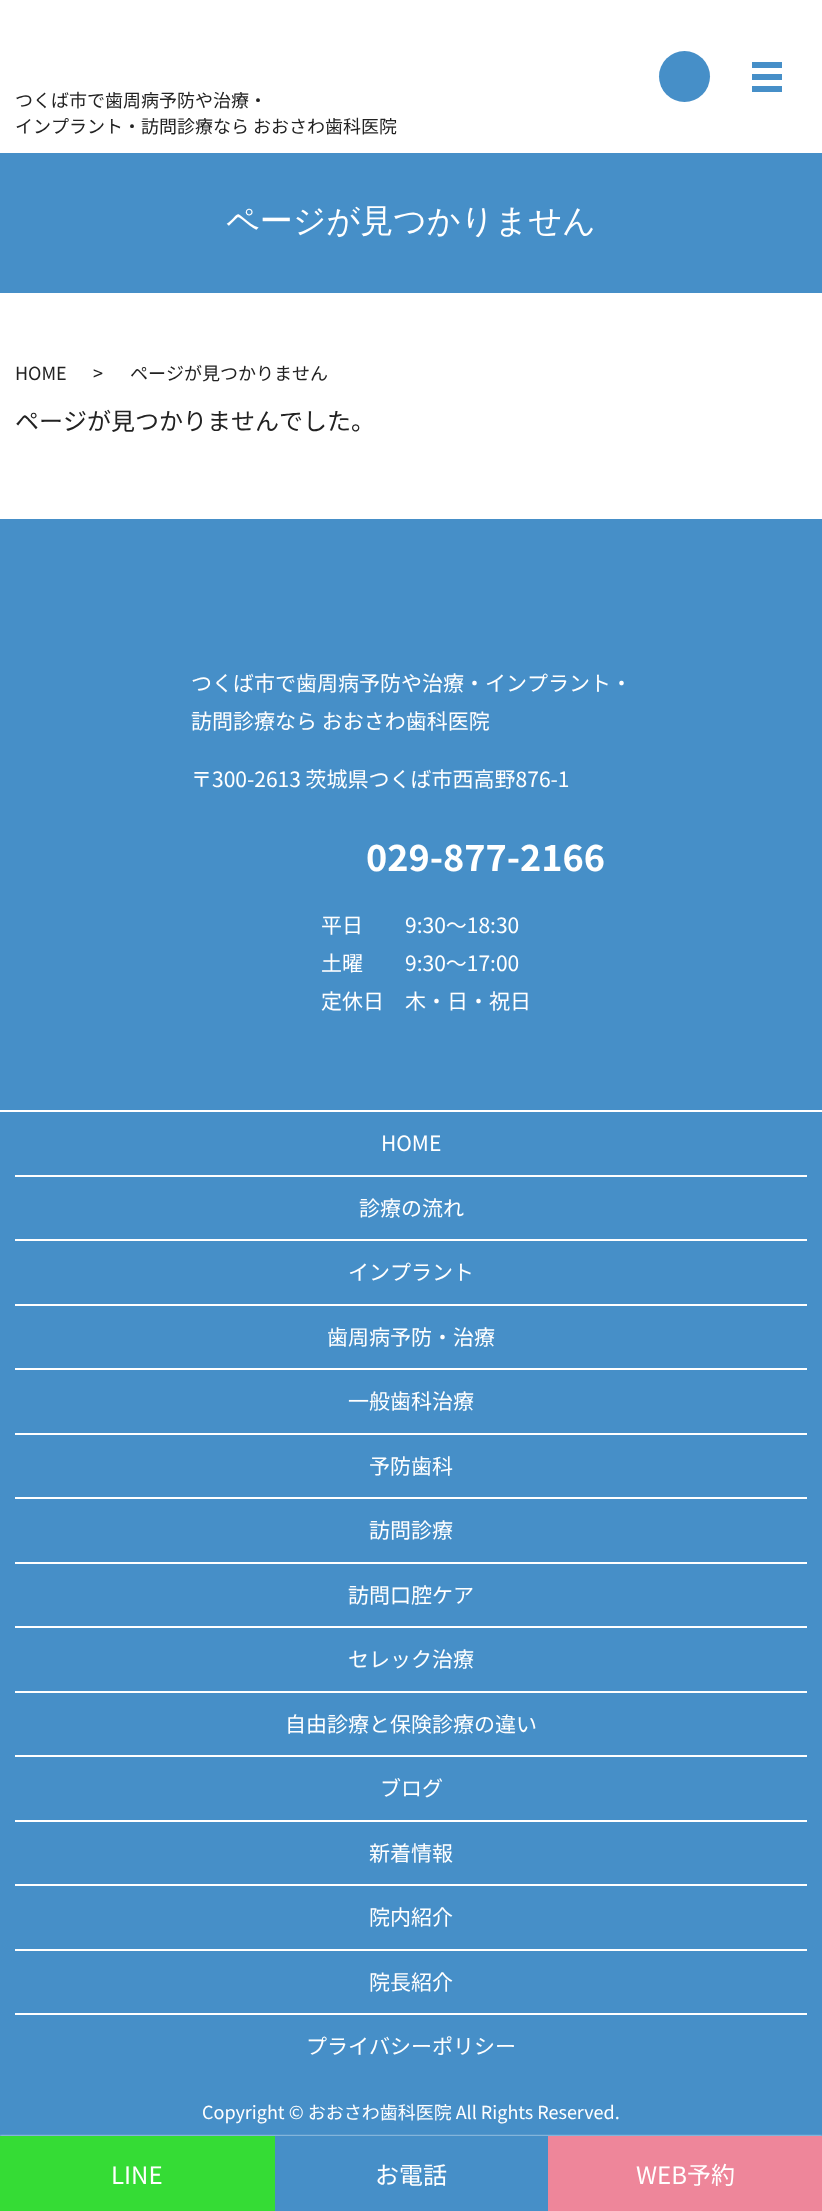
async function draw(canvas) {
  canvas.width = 822
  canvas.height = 2211
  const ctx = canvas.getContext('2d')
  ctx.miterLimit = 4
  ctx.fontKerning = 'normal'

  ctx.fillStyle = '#fff'
  ctx.fillRect(0, 0, 822, 2211)
  ctx.fillStyle = '#468fc8'
  ctx.beginPath()
  ctx.arc(684.5, 76.5, 25.5, 0, 2 * Math.PI)
  ctx.fill()
  ctx.fillRect(752, 62, 30, 6)
  ctx.fillRect(752, 74, 30, 6)
  ctx.fillRect(752, 86, 30, 6)
  ctx.font = '18px Noto Sans JP'
  ctx.fillStyle = '#222'
  ctx.fillText('つくば市で歯周病予防や治療・', 15, 107)
  ctx.fillText('インプラント・訪問診療なら おおさわ歯科医院', 15, 133)
  ctx.fillStyle = '#468fc8'
  ctx.fillRect(0, 153, 822, 140)
  ctx.font = '500 33px WenQuanYi Zen Hei'
  ctx.fillStyle = '#fff'
  ctx.fillText('ページが見つかりません', 226, 232)
  ctx.font = '18px Noto Sans JP'
  ctx.fillStyle = '#222'
  ctx.fillText('HOME', 15, 380)
  ctx.fillText('>', 93, 380)
  ctx.fillText('ページが見つかりません', 130, 380)
  ctx.font = '24px Noto Sans JP'
  ctx.fillText('ページが見つかりませんでした。', 15, 430)
  ctx.fillStyle = '#468fc8'
  ctx.fillRect(0, 519, 822, 1617)
  ctx.font = '21px Noto Sans JP'
  ctx.fillStyle = '#fff'
  ctx.fillText('つくば市で歯周病予防や治療・インプラント・', 191, 691)
  ctx.fillText('訪問診療なら おおさわ歯科医院', 191, 729)
  ctx.fillText('〒300-2613 茨城県つくば市西高野876-1', 191, 787)
  ctx.font = 'bold 36px Noto Sans JP'
  ctx.fillText('029-877-2166', 366, 871)
  ctx.font = '21px Noto Sans JP'
  ctx.fillText('平日　　9:30～18:30', 321, 933)
  ctx.fillText('土曜　　9:30〜17:00', 321, 971)
  ctx.fillText('定休日　木・日・祝日', 321, 1009)
  ctx.fillRect(0, 1110, 822, 2)
  ctx.fillText('HOME', 381, 1151)
  ctx.fillRect(15, 1175, 792, 2)
  ctx.fillText('診療の流れ', 359, 1216)
  ctx.fillRect(15, 1239, 792, 2)
  ctx.fillText('インプラント', 348, 1280)
  ctx.fillRect(15, 1304, 792, 2)
  ctx.fillText('歯周病予防・治療', 327, 1345)
  ctx.fillRect(15, 1368, 792, 2)
  ctx.fillText('一般歯科治療', 348, 1409)
  ctx.fillRect(15, 1433, 792, 2)
  ctx.fillText('予防歯科', 369, 1474)
  ctx.fillRect(15, 1497, 792, 2)
  ctx.fillText('訪問診療', 369, 1538)
  ctx.fillRect(15, 1562, 792, 2)
  ctx.fillText('訪問口腔ケア', 348, 1603)
  ctx.fillRect(15, 1626, 792, 2)
  ctx.fillText('セレック治療', 348, 1667)
  ctx.fillRect(15, 1691, 792, 2)
  ctx.fillText('自由診療と保険診療の違い', 285, 1732)
  ctx.fillRect(15, 1755, 792, 2)
  ctx.fillText('ブログ', 380, 1796)
  ctx.fillRect(15, 1820, 792, 2)
  ctx.fillText('新着情報', 369, 1861)
  ctx.fillRect(15, 1884, 792, 2)
  ctx.fillText('院内紹介', 369, 1925)
  ctx.fillRect(15, 1949, 792, 2)
  ctx.fillText('院長紹介', 369, 1990)
  ctx.fillRect(15, 2013, 792, 2)
  ctx.fillText('プライバシーポリシー', 306, 2054)
  ctx.font = '18px Noto Sans JP'
  ctx.fillText('Copyright © おおさわ歯科医院 All Rights Reserved.', 202, 2119)
  ctx.filter = 'blur(1px)'
  ctx.beginPath()
  ctx.rect(0, 2136, 822, 75)
  ctx.fill()
  ctx.filter = 'none'
  ctx.fillStyle = '#35dc35'
  ctx.fillRect(0, 2136, 275, 75)
  ctx.font = '24px Noto Sans JP'
  ctx.fillStyle = '#fff'
  ctx.fillText('LINE', 111, 2184)
  ctx.fillStyle = '#468fc8'
  ctx.fillRect(275, 2136, 273, 75)
  ctx.fillStyle = '#fff'
  ctx.fillText('お電話', 375, 2184)
  ctx.fillStyle = '#ee869a'
  ctx.fillRect(548, 2136, 274, 75)
  ctx.fillStyle = '#fff'
  ctx.fillText('WEB予約', 636, 2184)
}

draw(document.querySelector('canvas'))
